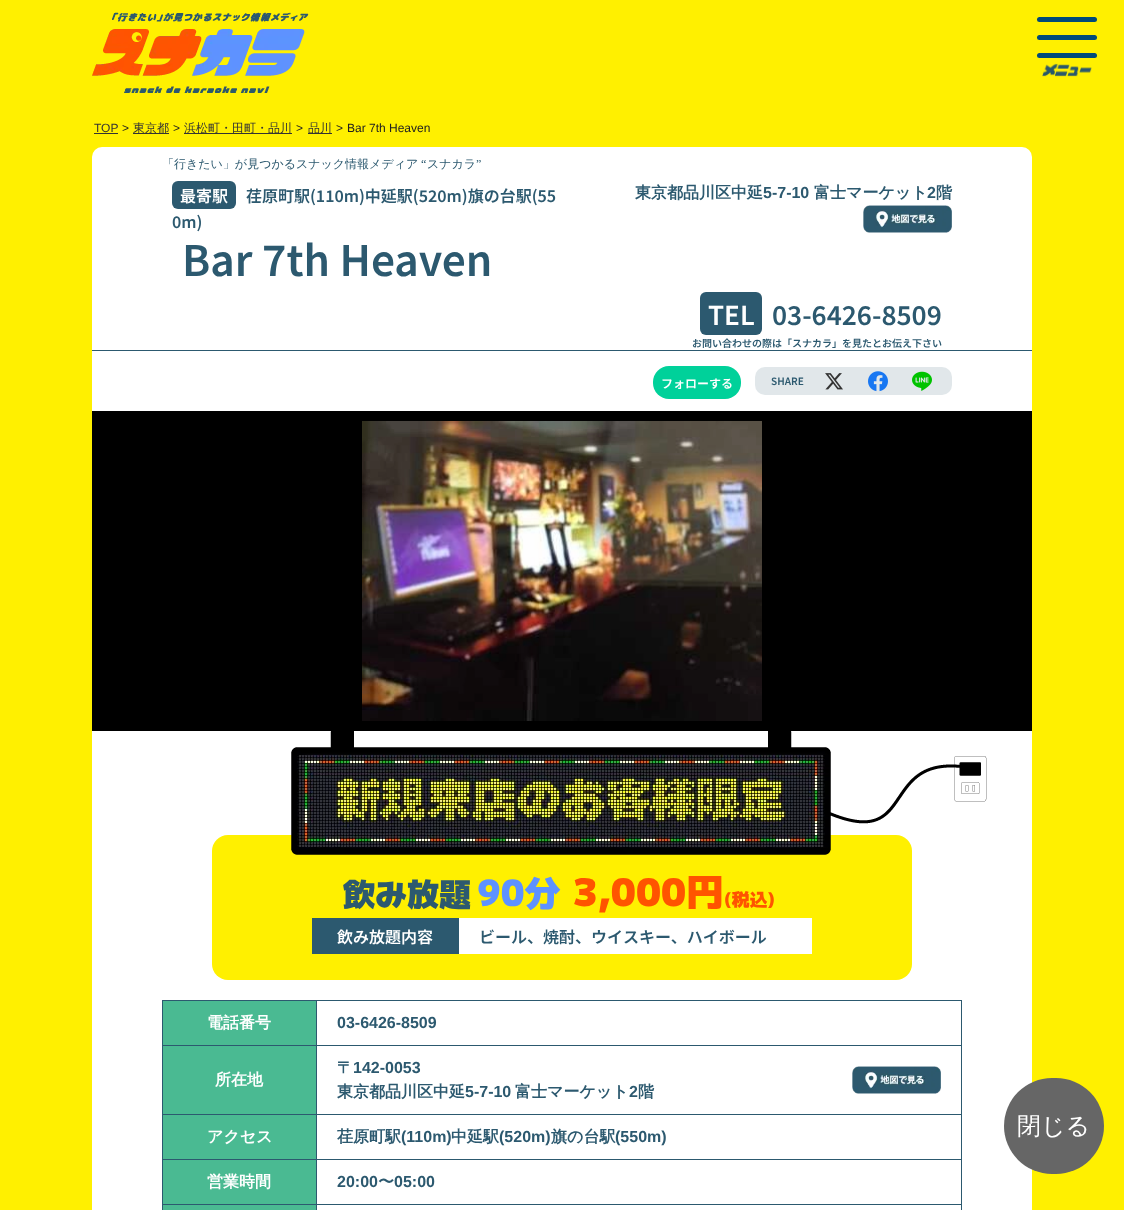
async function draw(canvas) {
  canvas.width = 1124
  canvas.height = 1210
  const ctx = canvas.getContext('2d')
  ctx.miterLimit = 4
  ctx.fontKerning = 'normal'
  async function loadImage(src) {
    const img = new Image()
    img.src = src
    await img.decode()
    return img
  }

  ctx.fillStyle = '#fff000'
  ctx.fillRect(0, 0, 1124, 1210)
  ctx.drawImage(await loadImage('image0.png'), 92, 12, 217, 81)
  ctx.fillStyle = '#004a79'
  ctx.beginPath()
  ctx.roundRect(1037, 35, 60, 5, 2.5)
  ctx.fill()
  ctx.beginPath()
  ctx.roundRect(1037, 17, 60, 5, 2.5)
  ctx.fill()
  ctx.beginPath()
  ctx.roundRect(1037, 53, 60, 5, 2.5)
  ctx.fill()
  ctx.drawImage(await loadImage('image1.png'), 1042, 63, 50, 14)
  ctx.font = '12px Liberation Sans'
  ctx.fillStyle = '#333'
  ctx.fillText('TOP', 94, 132)
  ctx.fillRect(94, 133, 24, 1)
  ctx.fillStyle = '#202020'
  ctx.fillText('>', 122, 132)
  ctx.fillStyle = '#333'
  ctx.fillRect(133, 133, 36, 1)
  ctx.font = '500 12px WenQuanYi Zen Hei'
  ctx.fillText('東京都', 133, 132)
  ctx.font = '12px Liberation Sans'
  ctx.fillStyle = '#202020'
  ctx.fillText('>', 173, 132)
  ctx.fillStyle = '#333'
  ctx.fillRect(184, 133, 108, 1)
  ctx.font = '500 12px WenQuanYi Zen Hei'
  ctx.fillText('浜松町・田町・品川', 184, 132)
  ctx.font = '12px Liberation Sans'
  ctx.fillStyle = '#202020'
  ctx.fillText('>', 296, 132)
  ctx.fillStyle = '#333'
  ctx.fillRect(308, 133, 24, 1)
  ctx.font = '500 12px WenQuanYi Zen Hei'
  ctx.fillText('品川', 308, 132)
  ctx.font = '12px Liberation Sans'
  ctx.fillStyle = '#202020'
  ctx.fillText('>', 336, 132)
  ctx.fillText('Bar 7th Heaven', 347, 132)
  ctx.fillStyle = '#fff'
  ctx.beginPath()
  ctx.roundRect(92, 147, 940, 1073, 10)
  ctx.fill()
  ctx.font = '500 12px WenQuanYi Zen Hei'
  ctx.fillStyle = '#2c596f'
  ctx.fillText('「行きたい」が見つかるスナック情報メディア', 162, 168)
  ctx.font = '12px Liberation Serif'
  ctx.fillText('“', 421, 168)
  ctx.font = '500 12px WenQuanYi Zen Hei'
  ctx.fillText('スナカラ', 427, 168)
  ctx.font = '12px Liberation Serif'
  ctx.fillText('”', 476, 168)
  ctx.fillRect(92, 350, 940, 1)
  ctx.beginPath()
  ctx.roundRect(172, 181, 64, 28, 6)
  ctx.fill()
  ctx.font = '600 16px Noto Sans JP'
  ctx.fillStyle = '#fff'
  ctx.fillText('最寄駅', 180, 202)
  ctx.fillStyle = '#2c596f'
  ctx.fillText('荏原町駅(110m)中延駅(520m)旗の台駅(55', 246, 202)
  ctx.fillText('0m)', 172, 228)
  ctx.font = 'bold 16px WenQuanYi Zen Hei'
  ctx.fillText('東京都品川区中延', 635, 198)
  ctx.font = 'bold 16px Liberation Sans'
  ctx.fillText('5-7-10', 763, 198)
  ctx.font = 'bold 16px WenQuanYi Zen Hei'
  ctx.fillText('富士マーケット', 814, 198)
  ctx.font = 'bold 16px Liberation Sans'
  ctx.fillText('2', 927, 198)
  ctx.font = 'bold 16px WenQuanYi Zen Hei'
  ctx.fillText('階', 936, 198)
  ctx.drawImage(await loadImage('image2.png'), 863, 205, 89, 28)
  ctx.font = '600 42px Noto Sans JP'
  ctx.fillText('Bar 7th Heaven', 182, 276)
  ctx.beginPath()
  ctx.roundRect(700, 292, 62, 43, 6)
  ctx.fill()
  ctx.font = '600 26px Noto Sans JP'
  ctx.fillStyle = '#fff'
  ctx.fillText('TEL', 708, 325)
  ctx.fillStyle = '#2c596f'
  ctx.fillText('03-6426-8509', 772, 325)
  ctx.font = '600 10px Noto Sans JP'
  ctx.fillText('お問い合わせの際は「スナカラ」を見たとお伝え下さい', 692, 347)
  ctx.fillStyle = '#00d19a'
  ctx.beginPath()
  ctx.roundRect(653, 366, 88, 33, 16)
  ctx.fill()
  ctx.font = '600 12px Noto Sans JP'
  ctx.fillStyle = '#fff'
  ctx.fillText('フォローする', 661, 388)
  ctx.fillStyle = '#e1e7ea'
  ctx.beginPath()
  ctx.roundRect(755, 367, 197, 28, 10)
  ctx.fill()
  ctx.font = '600 10px Noto Sans JP'
  ctx.fillStyle = '#2c596f'
  ctx.fillText('SHARE', 771, 385)
  ctx.drawImage(await loadImage('image3.png'), 825, 373, 18, 17)
  ctx.drawImage(await loadImage('image4.png'), 868, 371, 20, 21)
  ctx.drawImage(await loadImage('image5.png'), 912, 371, 20, 20)
  ctx.fillStyle = '#000'
  ctx.fillRect(92, 411, 940, 320)
  ctx.drawImage(await loadImage('image6.png'), 362, 421, 400, 300)
  ctx.fillStyle = '#fff000'
  ctx.beginPath()
  ctx.roundRect(212, 835, 700, 145, 16)
  ctx.fill()
  ctx.drawImage(await loadImage('image7.png'), 291, 731, 696, 124)
  ctx.font = '900 32px "M PLUS 2"'
  ctx.fillStyle = '#2c596f'
  ctx.fillText('飲み放題', 343, 906)
  ctx.font = '900 36px "M PLUS 2"'
  ctx.fillStyle = '#5e92ff'
  ctx.fillText('90分', 477, 906)
  ctx.font = '900 38px "M PLUS 2"'
  ctx.fillStyle = '#ff5400'
  ctx.fillText('3,000円', 573, 906)
  ctx.font = '900 18px "M PLUS 2"'
  ctx.fillText('(税込)', 724, 906)
  ctx.fillStyle = '#fff'
  ctx.fillRect(459, 918, 353, 36)
  ctx.fillStyle = '#2c596f'
  ctx.fillRect(312, 918, 147, 36)
  ctx.font = '600 16px Noto Sans JP'
  ctx.fillStyle = '#fff'
  ctx.fillText('飲み放題内容', 337, 943)
  ctx.fillStyle = '#2c596f'
  ctx.fillText('ビール、焼酎、ウイスキー、ハイボール', 479, 943)
  ctx.fillStyle = '#4aba92'
  ctx.fillRect(163, 1001, 153, 44)
  ctx.fillStyle = '#2c596f'
  ctx.fillRect(316, 1000, 646, 1)
  ctx.fillRect(316, 1045, 646, 1)
  ctx.fillRect(316, 1114, 646, 1)
  ctx.fillRect(316, 1159, 646, 1)
  ctx.fillRect(316, 1204, 646, 1)
  ctx.fillRect(316, 1204, 1, 6)
  ctx.fillRect(162, 1204, 155, 1)
  ctx.fillRect(316, 1159, 1, 46)
  ctx.fillRect(162, 1159, 155, 1)
  ctx.fillRect(316, 1114, 1, 46)
  ctx.fillRect(162, 1114, 155, 1)
  ctx.fillRect(316, 1045, 1, 70)
  ctx.fillRect(162, 1045, 155, 1)
  ctx.fillRect(316, 1000, 1, 46)
  ctx.fillRect(162, 1000, 155, 1)
  ctx.fillRect(162, 1204, 1, 6)
  ctx.fillRect(162, 1159, 1, 46)
  ctx.fillRect(162, 1114, 1, 46)
  ctx.fillRect(162, 1045, 1, 70)
  ctx.fillRect(162, 1000, 1, 46)
  ctx.font = 'bold 16px WenQuanYi Zen Hei'
  ctx.fillStyle = '#fff'
  ctx.fillText('電話番号', 207, 1028)
  ctx.fillStyle = '#2c596f'
  ctx.fillRect(961, 1204, 1, 6)
  ctx.fillRect(961, 1159, 1, 46)
  ctx.fillRect(961, 1114, 1, 46)
  ctx.fillRect(961, 1045, 1, 70)
  ctx.fillRect(961, 1000, 1, 46)
  ctx.font = 'bold 16px Liberation Sans'
  ctx.fillText('03-6426-8509', 337, 1028)
  ctx.fillStyle = '#4aba92'
  ctx.fillRect(163, 1046, 153, 68)
  ctx.font = 'bold 16px WenQuanYi Zen Hei'
  ctx.fillStyle = '#fff'
  ctx.fillText('所在地', 215, 1085)
  ctx.fillStyle = '#2c596f'
  ctx.fillText('〒', 337, 1073)
  ctx.font = 'bold 16px Liberation Sans'
  ctx.fillText('142-0053', 353, 1073)
  ctx.font = 'bold 16px WenQuanYi Zen Hei'
  ctx.fillText('東京都品川区中延', 337, 1097)
  ctx.font = 'bold 16px Liberation Sans'
  ctx.fillText('5-7-10', 465, 1097)
  ctx.font = 'bold 16px WenQuanYi Zen Hei'
  ctx.fillText('富士マーケット', 515, 1097)
  ctx.font = 'bold 16px Liberation Sans'
  ctx.fillText('2', 629, 1097)
  ctx.font = 'bold 16px WenQuanYi Zen Hei'
  ctx.fillText('階', 638, 1097)
  ctx.drawImage(await loadImage('image2.png'), 852, 1066, 89, 28)
  ctx.fillStyle = '#4aba92'
  ctx.fillRect(163, 1115, 153, 44)
  ctx.fillStyle = '#fff'
  ctx.fillText('アクセス', 207, 1142)
  ctx.fillStyle = '#2c596f'
  ctx.fillText('荏原町駅', 337, 1142)
  ctx.font = 'bold 16px Liberation Sans'
  ctx.fillText('(110m)', 401, 1142)
  ctx.font = 'bold 16px WenQuanYi Zen Hei'
  ctx.fillText('中延駅', 451, 1142)
  ctx.font = 'bold 16px Liberation Sans'
  ctx.fillText('(520m)', 499, 1142)
  ctx.font = 'bold 16px WenQuanYi Zen Hei'
  ctx.fillText('旗の台駅', 551, 1142)
  ctx.font = 'bold 16px Liberation Sans'
  ctx.fillText('(550m)', 615, 1142)
  ctx.fillStyle = '#4aba92'
  ctx.fillRect(163, 1160, 153, 44)
  ctx.font = 'bold 16px WenQuanYi Zen Hei'
  ctx.fillStyle = '#fff'
  ctx.fillText('営業時間', 207, 1187)
  ctx.font = 'bold 16px Liberation Sans'
  ctx.fillStyle = '#2c596f'
  ctx.fillText('20:00', 337, 1187)
  ctx.font = 'bold 16px WenQuanYi Zen Hei'
  ctx.fillText('〜', 378, 1187)
  ctx.font = 'bold 16px Liberation Sans'
  ctx.fillText('05:00', 394, 1187)
  ctx.fillStyle = '#4aba92'
  ctx.fillRect(163, 1205, 153, 5)
  ctx.fillStyle = '#666'
  ctx.beginPath()
  ctx.roundRect(1004, 1078, 100, 96, 48)
  ctx.fill()
  ctx.font = '500 24px WenQuanYi Zen Hei'
  ctx.fillStyle = '#fff'
  ctx.fillText('閉じる', 1017, 1134)
}

draw(document.querySelector('canvas'))
